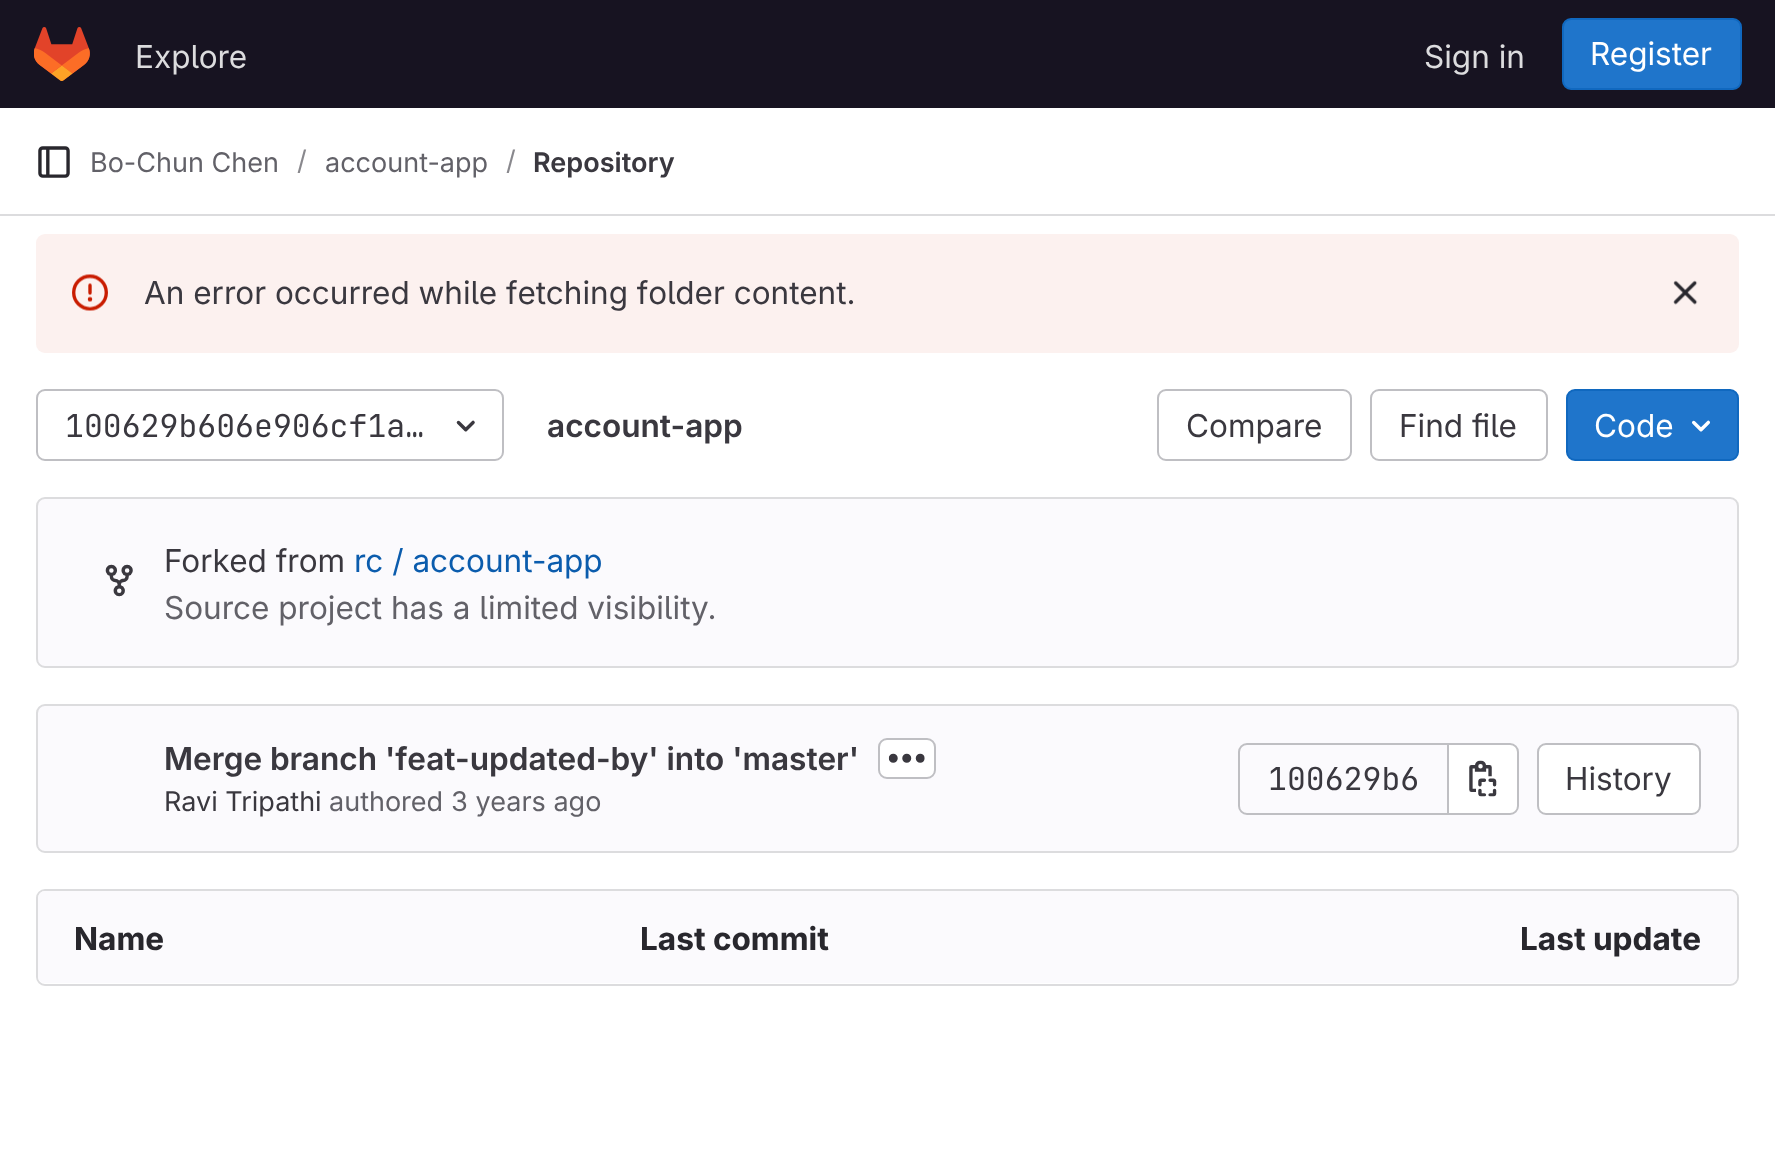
async function draw(canvas) {
  canvas.width = 1775
  canvas.height = 1153
  const ctx = canvas.getContext('2d')
  ctx.miterLimit = 4
  ctx.fontKerning = 'normal'
  async function loadImage(src) {
    const img = new Image()
    img.src = src
    await img.decode()
    return img
  }

  ctx.fillStyle = '#fff'
  ctx.fillRect(0, 0, 1775, 1153)
  ctx.fillStyle = '#171321'
  ctx.fillRect(0, 0, 1775, 108)
  ctx.drawImage(await loadImage('image0.png'), 34, 27, 56, 54)
  ctx.font = '31.5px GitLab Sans'
  ctx.fillStyle = '#dcdcde'
  ctx.fillText('Explore', 135, 68)
  ctx.fillText('Sign in', 1424, 68)
  ctx.fillStyle = '#1f75cb'
  ctx.beginPath()
  ctx.roundRect(1563, 19, 178, 70, 8)
  ctx.fill()
  ctx.strokeStyle = '#1068bf'
  ctx.lineWidth = 2
  ctx.stroke()
  ctx.fillStyle = '#fff'
  ctx.fillText('Register', 1590, 65)
  ctx.fillStyle = '#dcdcde'
  ctx.fillRect(0, 214, 1775, 2)
  ctx.drawImage(await loadImage('image1.png'), 38, 146, 32, 32)
  ctx.font = '27px GitLab Sans'
  ctx.fillStyle = '#626168'
  ctx.fillText('Bo-Chun Chen', 90, 172)
  ctx.fillStyle = '#89888d'
  ctx.fillText('/', 297, 170)
  ctx.fillStyle = '#626168'
  ctx.fillText('account-app', 325, 172)
  ctx.fillStyle = '#89888d'
  ctx.fillText('/', 506, 170)
  ctx.font = '600 27px GitLab Sans'
  ctx.fillStyle = '#3a383f'
  ctx.fillText('Repository', 533, 172)
  ctx.fillStyle = '#fcf1ef'
  ctx.beginPath()
  ctx.roundRect(36, 234, 1703, 119, 9)
  ctx.fill()
  ctx.drawImage(await loadImage('image2.png'), 72, 274, 36, 37)
  ctx.font = '31.5px GitLab Sans'
  ctx.fillStyle = '#3a383f'
  ctx.fillText('An error occurred while fetching folder content.', 144, 304)
  ctx.drawImage(await loadImage('image3.png'), 1673, 280, 25, 25)
  ctx.beginPath()
  ctx.roundRect(37, 390, 466, 70, 8)
  ctx.strokeStyle = '#bfbfc3'
  ctx.stroke()
  ctx.font = '31.5px JetBrains Mono'
  ctx.fillText('100629b606e906cf1a…', 65, 437)
  ctx.drawImage(await loadImage('image4.png'), 456, 420, 19, 12)
  ctx.font = '600 31.5px GitLab Sans'
  ctx.fillText('account-app', 547, 437)
  ctx.beginPath()
  ctx.roundRect(1158, 390, 193, 70, 8)
  ctx.stroke()
  ctx.font = '31.5px GitLab Sans'
  ctx.fillText('Compare', 1186, 437)
  ctx.beginPath()
  ctx.roundRect(1371, 390, 176, 70, 8)
  ctx.stroke()
  ctx.fillText('Find file', 1399, 437)
  ctx.fillStyle = '#1f75cb'
  ctx.beginPath()
  ctx.roundRect(1567, 390, 171, 70, 8)
  ctx.fill()
  ctx.strokeStyle = '#1068bf'
  ctx.stroke()
  ctx.fillStyle = '#fff'
  ctx.fillText('Code', 1594, 437)
  ctx.drawImage(await loadImage('image5.png'), 1692, 420, 18, 12)
  ctx.fillStyle = '#fbfafd'
  ctx.beginPath()
  ctx.roundRect(37, 498, 1701, 169, 8)
  ctx.fill()
  ctx.strokeStyle = '#dcdcde'
  ctx.stroke()
  ctx.drawImage(await loadImage('image6.png'), 105, 564, 28, 33)
  ctx.fillStyle = '#3a383f'
  ctx.fillText('Forked from', 164, 572)
  ctx.fillStyle = '#0b5cad'
  ctx.fillText('rc / account-app', 354, 572)
  ctx.fillStyle = '#626168'
  ctx.fillText('Source project has a limited visibility.', 164, 619)
  ctx.fillStyle = '#fbfafd'
  ctx.beginPath()
  ctx.roundRect(37, 705, 1701, 147, 8)
  ctx.fill()
  ctx.stroke()
  ctx.font = '600 31.5px GitLab Sans'
  ctx.fillStyle = '#3a383f'
  ctx.fillText('Merge branch \'feat-updated-by\' into \'master\'', 164, 770)
  ctx.fillStyle = '#fff'
  ctx.beginPath()
  ctx.roundRect(879, 739, 56, 39, 8)
  ctx.fill()
  ctx.strokeStyle = '#bfbfc3'
  ctx.stroke()
  ctx.drawImage(await loadImage('image7.png'), 888, 753, 37, 10)
  ctx.font = '27px GitLab Sans'
  ctx.fillStyle = '#3a383f'
  ctx.fillText('Ravi Tripathi', 164, 811)
  ctx.fillStyle = '#626168'
  ctx.fillText('authored 3 years ago', 329, 811)
  ctx.beginPath()
  ctx.roundRect(1239, 744, 209, 70, [8, 0, 0, 8])
  ctx.stroke()
  ctx.font = '31.5px JetBrains Mono'
  ctx.fillStyle = '#3a383f'
  ctx.fillText('100629b6', 1268, 790)
  ctx.fillStyle = '#fff'
  ctx.beginPath()
  ctx.roundRect(1448, 744, 70, 70, [0, 8, 8, 0])
  ctx.fill()
  ctx.stroke()
  ctx.drawImage(await loadImage('image8.png'), 1469, 760, 28, 37)
  ctx.beginPath()
  ctx.roundRect(1538, 744, 162, 70, 8)
  ctx.fill()
  ctx.stroke()
  ctx.font = '31.5px GitLab Sans'
  ctx.fillStyle = '#3a383f'
  ctx.fillText('History', 1565, 790)
  ctx.beginPath()
  ctx.roundRect(37, 890, 1701, 95, 8)
  ctx.strokeStyle = '#dcdcde'
  ctx.stroke()
  ctx.fillStyle = '#fbfafd'
  ctx.beginPath()
  ctx.roundRect(38, 891, 567, 92, [7, 0, 0, 7])
  ctx.fill()
  ctx.font = 'bold 31.5px GitLab Sans'
  ctx.fillStyle = '#28272d'
  ctx.fillText('Name', 74, 950)
  ctx.fillStyle = '#fbfafd'
  ctx.fillRect(605, 891, 565, 92)
  ctx.fillStyle = '#28272d'
  ctx.fillText('Last commit', 640, 950)
  ctx.fillStyle = '#fbfafd'
  ctx.beginPath()
  ctx.roundRect(1170, 891, 567, 92, [0, 7, 7, 0])
  ctx.fill()
  ctx.fillStyle = '#28272d'
  ctx.fillText('Last update', 1520, 950)
}

draw(document.querySelector('canvas'))
